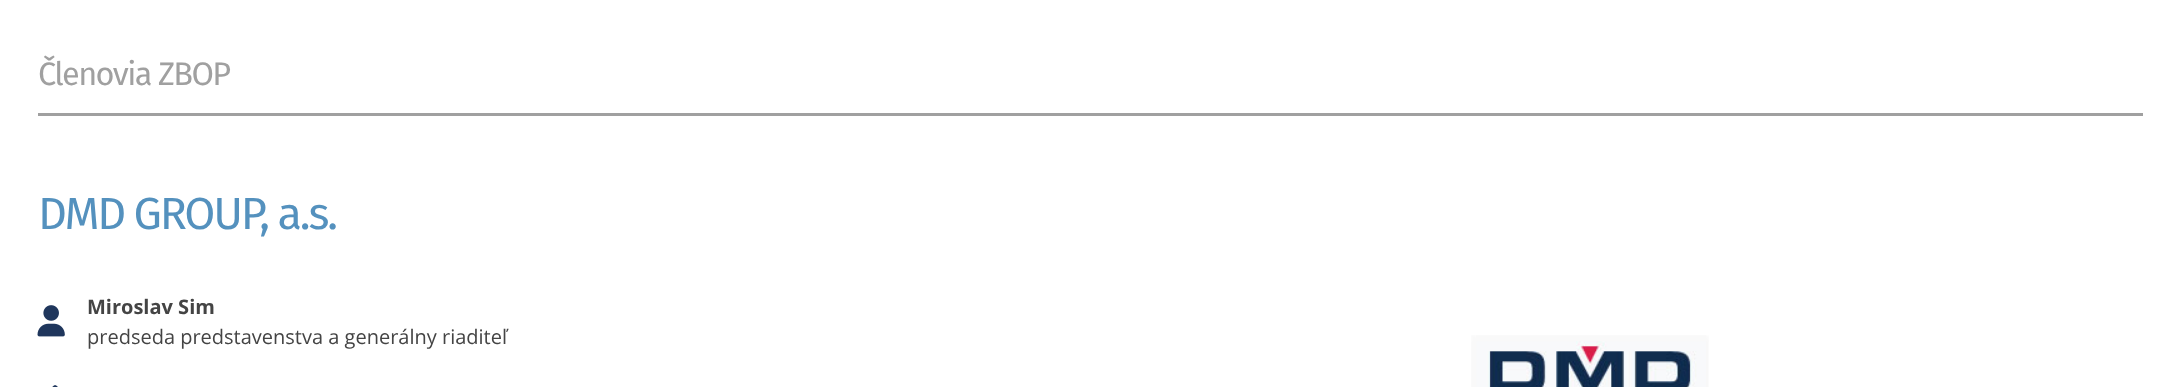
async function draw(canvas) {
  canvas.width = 2179
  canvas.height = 387
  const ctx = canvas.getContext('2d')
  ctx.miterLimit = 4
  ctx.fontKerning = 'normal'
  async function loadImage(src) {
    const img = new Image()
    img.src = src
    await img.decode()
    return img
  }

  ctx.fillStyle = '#fff'
  ctx.fillRect(0, 0, 2179, 387)
  ctx.fillStyle = '#a0a0a0'
  ctx.fillRect(38, 113, 2105, 3)
  ctx.letterSpacing = '-1.6px'
  ctx.font = '32.5px Fira Sans'
  ctx.fillText('Členovia ZBOP', 38, 85)
  ctx.letterSpacing = '-2.25px'
  ctx.font = '45px Fira Sans'
  ctx.fillStyle = '#5491be'
  ctx.fillText('DMD GROUP, a.s.', 38, 229)
  ctx.drawImage(await loadImage('image0.png'), 37, 305, 28, 32)
  ctx.letterSpacing = '0px'
  ctx.font = 'bold 20px Open Sans'
  ctx.fillStyle = '#444'
  ctx.fillText('Miroslav Sim', 87, 314)
  ctx.font = '20px Open Sans'
  ctx.fillText('predseda predstavenstva a generálny riaditeľ', 87, 344)
  ctx.drawImage(await loadImage('image1.png'), 52, 385, 6, 2)
  ctx.drawImage(await loadImage('image2.png'), 1471, 335, 238, 52)
}

draw(document.querySelector('canvas'))
